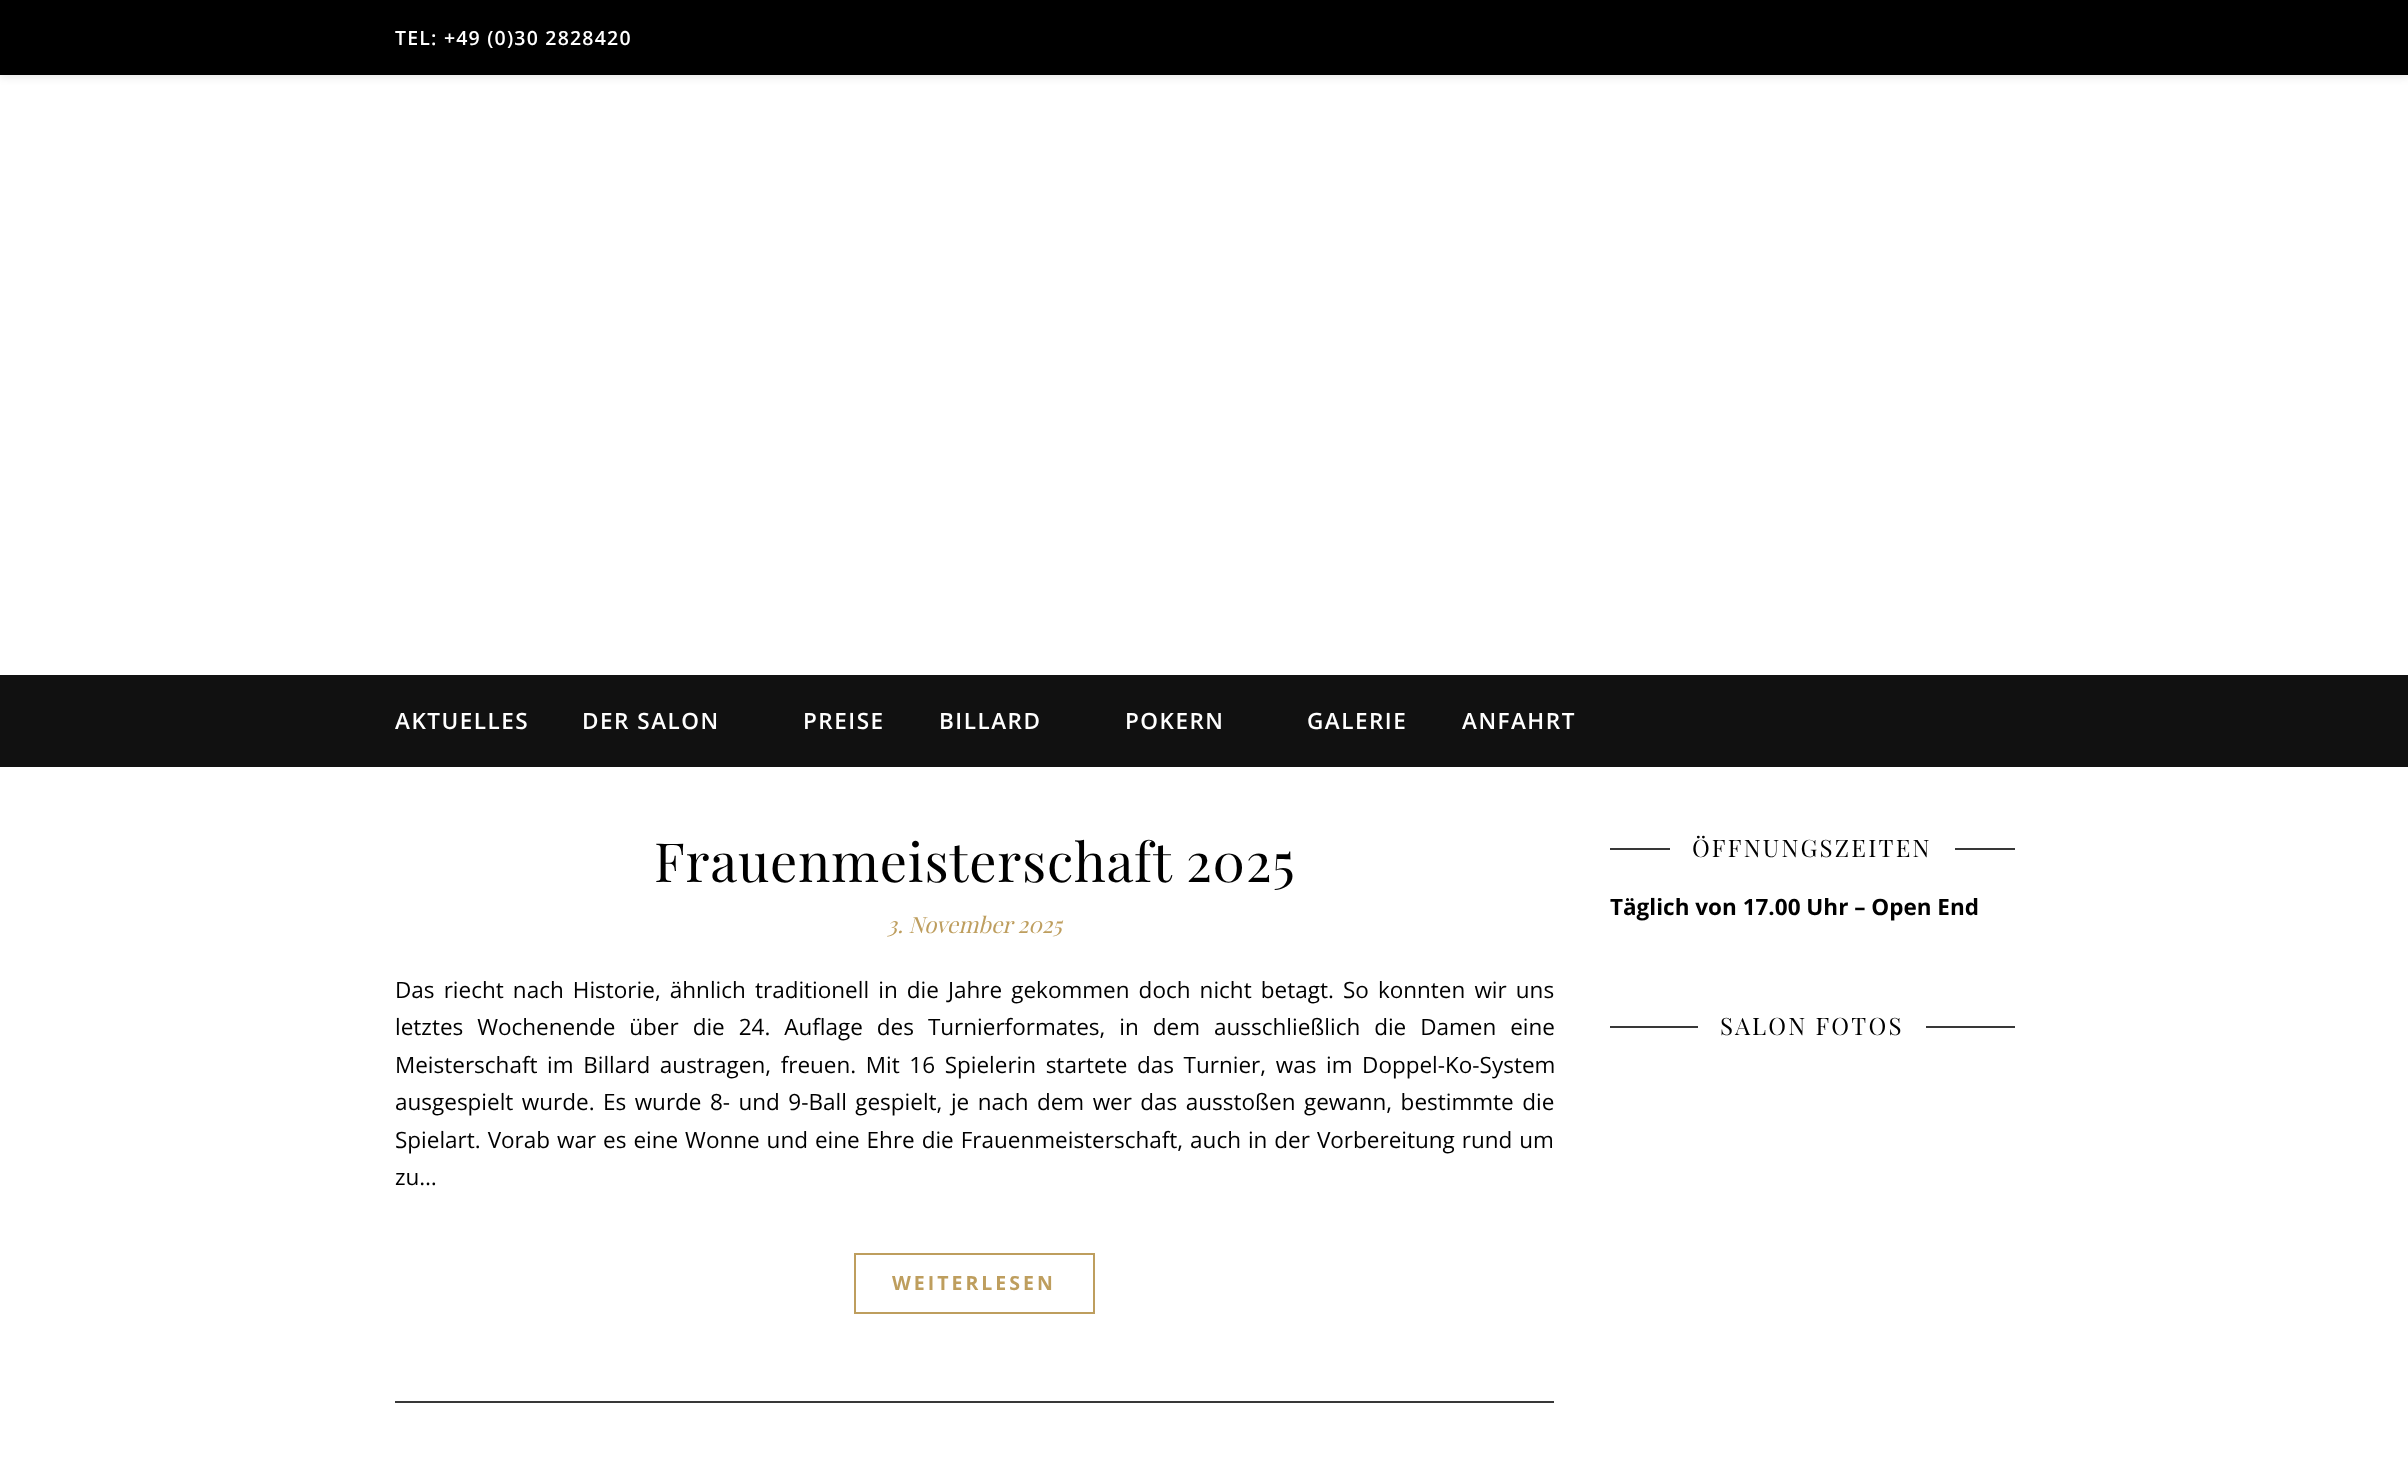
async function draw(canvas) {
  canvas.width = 2408
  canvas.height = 1473
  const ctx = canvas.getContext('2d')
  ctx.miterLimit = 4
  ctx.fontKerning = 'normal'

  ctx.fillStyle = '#fff'
  ctx.fillRect(0, 0, 2408, 1473)
  ctx.fillStyle = '#0000001a'
  ctx.filter = 'blur(4px)'
  ctx.beginPath()
  ctx.rect(0, 2, 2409, 75)
  ctx.fill()
  ctx.filter = 'none'
  ctx.fillStyle = '#000'
  ctx.fillRect(0, 0, 2408, 75)
  ctx.letterSpacing = '1.2px'
  ctx.font = '600 19.5px Open Sans'
  ctx.fillStyle = '#fff'
  ctx.fillText('TEL: +49 (0)30 2828420', 395, 45)
  ctx.fillStyle = '#111'
  ctx.fillRect(0, 675, 2408, 92)
  ctx.letterSpacing = '1.5px'
  ctx.font = '600 22.5px Open Sans'
  ctx.fillStyle = '#fff'
  ctx.fillText('AKTUELLES', 395, 729)
  ctx.fillText('DER SALON', 582, 729)
  ctx.fillText('PREISE', 803, 729)
  ctx.fillText('BILLARD', 939, 729)
  ctx.fillText('POKERN', 1125, 729)
  ctx.fillText('GALERIE', 1307, 729)
  ctx.fillText('ANFAHRT', 1462, 729)
  ctx.letterSpacing = '0.75px'
  ctx.font = '54px Playfair Display'
  ctx.fillStyle = '#000'
  ctx.fillText('Frauenmeisterschaft 2025', 654, 882)
  ctx.letterSpacing = '0px'
  ctx.font = 'italic 22.5px Playfair Display'
  ctx.fillStyle = '#be9e5e'
  ctx.fillText('3. November 2025', 887, 933)
  ctx.wordSpacing = '3.25px'
  ctx.font = '22.5px Open Sans'
  ctx.fillStyle = '#000'
  ctx.fillText('Das riecht nach Historie, ähnlich traditionell in die Jahre gekommen doch nicht betagt. So konnten wir uns', 395, 998)
  ctx.wordSpacing = '8.1px'
  ctx.fillText('letztes Wochenende über die 24. Auflage des Turnierformates, in dem ausschließlich die Damen eine', 395, 1035)
  ctx.wordSpacing = '3.75px'
  ctx.fillText('Meisterschaft im Billard austragen, freuen. Mit 16 Spielerin startete das Turnier, was im Doppel-Ko-System', 395, 1073)
  ctx.wordSpacing = '2.6px'
  ctx.fillText('ausgespielt wurde. Es wurde 8- und 9-Ball gespielt, je nach dem wer das ausstoßen gewann, bestimmte die', 395, 1110)
  ctx.wordSpacing = '1.1px'
  ctx.fillText('Spielart. Vorab war es eine Wonne und eine Ehre die Frauenmeisterschaft, auch in der Vorbereitung rund um', 395, 1148)
  ctx.wordSpacing = '0px'
  ctx.fillText('zu…', 395, 1185)
  ctx.strokeStyle = '#be9e5e'
  ctx.lineWidth = 2
  ctx.strokeRect(855, 1254, 239, 59)
  ctx.letterSpacing = '3px'
  ctx.font = 'bold 19.5px Open Sans'
  ctx.fillStyle = '#be9e5e'
  ctx.fillText('WEITERLESEN', 892, 1290)
  ctx.fillStyle = '#383838'
  ctx.fillRect(395, 1401, 1159, 2)
  ctx.fillRect(1610, 848, 60, 2)
  ctx.letterSpacing = '2.25px'
  ctx.font = '24px Playfair Display'
  ctx.fillStyle = '#000'
  ctx.fillText('ÖFFNUNGSZEITEN', 1692, 857)
  ctx.fillStyle = '#383838'
  ctx.fillRect(1955, 848, 60, 2)
  ctx.letterSpacing = '0px'
  ctx.font = 'bold 22.5px Open Sans'
  ctx.fillStyle = '#000'
  ctx.fillText('Täglich von 17.00 Uhr – Open End', 1610, 915)
  ctx.fillStyle = '#383838'
  ctx.fillRect(1610, 1026, 88, 2)
  ctx.letterSpacing = '2.25px'
  ctx.font = '24px Playfair Display'
  ctx.fillStyle = '#000'
  ctx.fillText('SALON FOTOS', 1720, 1035)
  ctx.fillStyle = '#383838'
  ctx.fillRect(1926, 1026, 89, 2)
}

draw(document.querySelector('canvas'))
